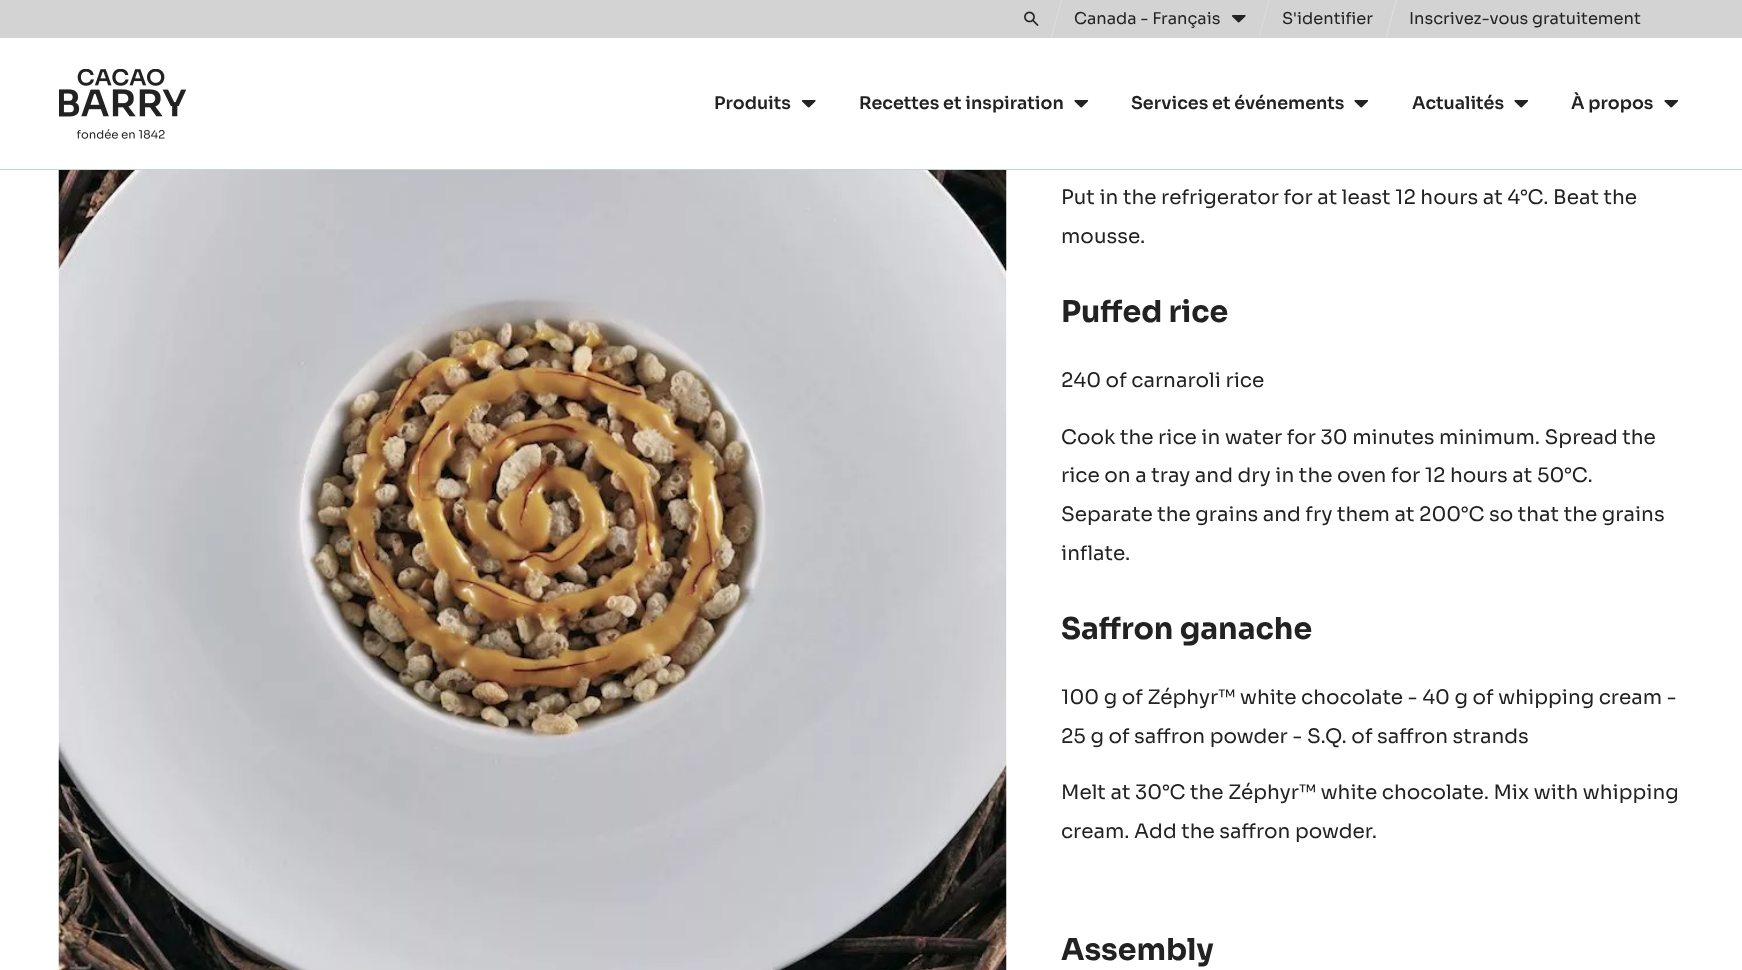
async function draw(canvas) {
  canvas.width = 1742
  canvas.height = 970
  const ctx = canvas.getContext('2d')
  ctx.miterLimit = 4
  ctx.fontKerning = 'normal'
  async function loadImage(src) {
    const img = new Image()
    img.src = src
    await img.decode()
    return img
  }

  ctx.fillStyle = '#fff'
  ctx.fillRect(0, 0, 1742, 970)
  ctx.fillStyle = '#d3d3d3'
  ctx.fillRect(0, 0, 1742, 38)
  ctx.drawImage(await loadImage('image0.png'), 1024, 11, 15, 15)
  ctx.fillStyle = '#dcdcdc'
  ctx.beginPath()
  ctx.moveTo(1061, 0)
  ctx.lineTo(1062, 0)
  ctx.lineTo(1052, 37.5)
  ctx.lineTo(1050.5, 37.5)
  ctx.closePath()
  ctx.fill()
  ctx.font = '16.25px Sora'
  ctx.fillStyle = '#222'
  ctx.fillText('Canada - Français', 1074, 24)
  ctx.drawImage(await loadImage('image1.png'), 1231, 15, 15, 8)
  ctx.fillStyle = '#dcdcdc'
  ctx.beginPath()
  ctx.moveTo(1268.5, 0)
  ctx.lineTo(1269.5, 0)
  ctx.lineTo(1259.5, 37.5)
  ctx.lineTo(1258.5, 37.5)
  ctx.closePath()
  ctx.fill()
  ctx.fillStyle = '#222'
  ctx.fillText('S\'identifier', 1282, 24)
  ctx.fillStyle = '#dcdcdc'
  ctx.beginPath()
  ctx.moveTo(1395.5, 0)
  ctx.lineTo(1397, 0)
  ctx.lineTo(1387, 37.5)
  ctx.lineTo(1385.5, 37.5)
  ctx.closePath()
  ctx.fill()
  ctx.fillStyle = '#222'
  ctx.fillText('Inscrivez-vous gratuitement', 1409, 24)
  ctx.fillStyle = '#c5d6d1'
  ctx.fillRect(0, 169, 1742, 1)
  ctx.drawImage(await loadImage('image2.png'), 59, 69, 127, 70)
  ctx.font = '600 17.5px Sora'
  ctx.fillStyle = '#222'
  ctx.fillText('Produits', 714, 109)
  ctx.drawImage(await loadImage('image3.png'), 801, 100, 15, 8)
  ctx.fillText('Recettes et inspiration', 859, 109)
  ctx.drawImage(await loadImage('image4.png'), 1074, 100, 15, 8)
  ctx.fillText('Services et événements', 1131, 109)
  ctx.drawImage(await loadImage('image4.png'), 1354, 100, 15, 8)
  ctx.fillText('Actualités', 1412, 109)
  ctx.drawImage(await loadImage('image4.png'), 1514, 100, 15, 8)
  ctx.fillText('À propos', 1571, 109)
  ctx.drawImage(await loadImage('image4.png'), 1664, 100, 15, 8)
  ctx.drawImage(await loadImage('image5.png'), 58, 170, 949, 800)
  ctx.font = '20px Sora'
  ctx.fillText('Put in the refrigerator for at least 12 hours at 4°C. Beat the', 1061, 204)
  ctx.fillText('mousse.', 1061, 243)
  ctx.font = 'bold 30px Sora'
  ctx.fillText('Puffed rice', 1061, 322)
  ctx.font = '20px Sora'
  ctx.fillText('240 of carnaroli rice', 1061, 387)
  ctx.fillText('Cook the rice in water for 30 minutes minimum. Spread the', 1061, 444)
  ctx.fillText('rice on a tray and dry in the oven for 12 hours at 50°C.', 1061, 482)
  ctx.fillText('Separate the grains and fry them at 200°C so that the grains', 1061, 521)
  ctx.fillText('inflate.', 1061, 560)
  ctx.font = 'bold 30px Sora'
  ctx.fillText('Saffron ganache', 1061, 639)
  ctx.font = '20px Sora'
  ctx.fillText('100 g of Zéphyr™ white chocolate - 40 g of whipping cream -', 1061, 704)
  ctx.fillText('25 g of saffron powder - S.Q. of saffron strands', 1061, 743)
  ctx.fillText('Melt at 30°C the Zéphyr™ white chocolate. Mix with whipping', 1061, 799)
  ctx.fillText('cream. Add the saffron powder.', 1061, 838)
  ctx.font = 'bold 30px Sora'
  ctx.fillText('Assembly', 1061, 960)
}

draw(document.querySelector('canvas'))
